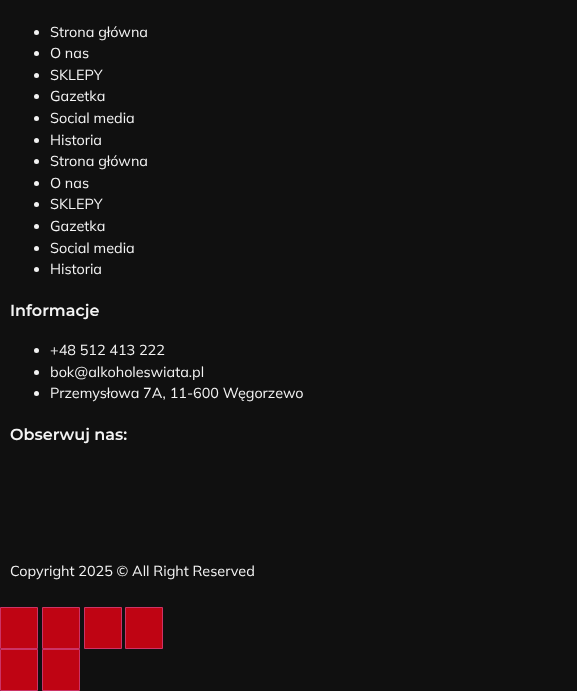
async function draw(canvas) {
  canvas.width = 577
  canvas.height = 691
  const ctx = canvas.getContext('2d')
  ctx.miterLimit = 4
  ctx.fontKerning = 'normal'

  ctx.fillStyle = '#101010'
  ctx.fillRect(0, 0, 577, 691)
  ctx.fillStyle = '#f2f2f2'
  ctx.beginPath()
  ctx.arc(36.5, 32.5, 2.5, 0, 2 * Math.PI)
  ctx.fill()
  ctx.font = '14.4px Mulish'
  ctx.fillStyle = '#f4f4f4'
  ctx.fillText('Strona główna', 50, 37)
  ctx.fillStyle = '#f2f2f2'
  ctx.beginPath()
  ctx.arc(36.5, 53.5, 2.5, 0, 2 * Math.PI)
  ctx.fill()
  ctx.fillStyle = '#f4f4f4'
  ctx.fillText('O nas', 50, 58)
  ctx.fillStyle = '#f2f2f2'
  ctx.beginPath()
  ctx.arc(36.5, 75.5, 2.5, 0, 2 * Math.PI)
  ctx.fill()
  ctx.fillStyle = '#f4f4f4'
  ctx.fillText('SKLEPY', 50, 80)
  ctx.fillStyle = '#f2f2f2'
  ctx.beginPath()
  ctx.arc(36.5, 96.5, 2.5, 0, 2 * Math.PI)
  ctx.fill()
  ctx.fillStyle = '#f4f4f4'
  ctx.fillText('Gazetka', 50, 101)
  ctx.fillStyle = '#f2f2f2'
  ctx.beginPath()
  ctx.arc(36.5, 118.5, 2.5, 0, 2 * Math.PI)
  ctx.fill()
  ctx.fillStyle = '#f4f4f4'
  ctx.fillText('Social media', 50, 123)
  ctx.fillStyle = '#f2f2f2'
  ctx.beginPath()
  ctx.arc(36.5, 140.5, 2.5, 0, 2 * Math.PI)
  ctx.fill()
  ctx.fillStyle = '#f4f4f4'
  ctx.fillText('Historia', 50, 145)
  ctx.fillStyle = '#f2f2f2'
  ctx.beginPath()
  ctx.arc(36.5, 161.5, 2.5, 0, 2 * Math.PI)
  ctx.fill()
  ctx.fillStyle = '#f4f4f4'
  ctx.fillText('Strona główna', 50, 166)
  ctx.fillStyle = '#f2f2f2'
  ctx.beginPath()
  ctx.arc(36.5, 183.5, 2.5, 0, 2 * Math.PI)
  ctx.fill()
  ctx.fillStyle = '#f4f4f4'
  ctx.fillText('O nas', 50, 188)
  ctx.fillStyle = '#f2f2f2'
  ctx.beginPath()
  ctx.arc(36.5, 204.5, 2.5, 0, 2 * Math.PI)
  ctx.fill()
  ctx.fillStyle = '#f4f4f4'
  ctx.fillText('SKLEPY', 50, 209)
  ctx.fillStyle = '#f2f2f2'
  ctx.beginPath()
  ctx.arc(36.5, 226.5, 2.5, 0, 2 * Math.PI)
  ctx.fill()
  ctx.fillStyle = '#f4f4f4'
  ctx.fillText('Gazetka', 50, 231)
  ctx.fillStyle = '#f2f2f2'
  ctx.beginPath()
  ctx.arc(36.5, 248.5, 2.5, 0, 2 * Math.PI)
  ctx.fill()
  ctx.fillStyle = '#f4f4f4'
  ctx.fillText('Social media', 50, 253)
  ctx.fillStyle = '#f2f2f2'
  ctx.beginPath()
  ctx.arc(36.5, 269.5, 2.5, 0, 2 * Math.PI)
  ctx.fill()
  ctx.fillStyle = '#f4f4f4'
  ctx.fillText('Historia', 50, 274)
  ctx.font = '600 16px Montserrat'
  ctx.fillText('Informacje', 10, 316)
  ctx.fillStyle = '#f2f2f2'
  ctx.beginPath()
  ctx.arc(36.5, 350.5, 2.5, 0, 2 * Math.PI)
  ctx.fill()
  ctx.font = '14.4px Mulish'
  ctx.fillStyle = '#f4f4f4'
  ctx.fillText('+48 512 413 222', 50, 355)
  ctx.fillStyle = '#f2f2f2'
  ctx.beginPath()
  ctx.arc(36.5, 372.5, 2.5, 0, 2 * Math.PI)
  ctx.fill()
  ctx.fillStyle = '#f4f4f4'
  ctx.fillText('bok@alkoholeswiata.pl', 50, 377)
  ctx.fillStyle = '#f2f2f2'
  ctx.beginPath()
  ctx.arc(36.5, 393.5, 2.5, 0, 2 * Math.PI)
  ctx.fill()
  ctx.fillStyle = '#f4f4f4'
  ctx.fillText('Przemysłowa 7A, 11-600 Węgorzewo', 50, 398)
  ctx.font = '600 16px Montserrat'
  ctx.fillText('Obserwuj nas:', 10, 440)
  ctx.font = '14.4px Mulish'
  ctx.fillText('Copyright 2025 © All Right Reserved', 10, 576)
  ctx.fillStyle = '#bf0413'
  ctx.beginPath()
  ctx.rect(0.5, 607.5, 37, 41)
  ctx.fill()
  ctx.strokeStyle = '#c36'
  ctx.stroke()
  ctx.beginPath()
  ctx.rect(42.5, 607.5, 37, 41)
  ctx.fill()
  ctx.stroke()
  ctx.beginPath()
  ctx.rect(84.5, 607.5, 37, 41)
  ctx.fill()
  ctx.stroke()
  ctx.beginPath()
  ctx.rect(125.5, 607.5, 37, 41)
  ctx.fill()
  ctx.stroke()
  ctx.beginPath()
  ctx.rect(0.5, 649.5, 37, 41)
  ctx.fill()
  ctx.stroke()
  ctx.beginPath()
  ctx.rect(42.5, 649.5, 37, 41)
  ctx.fill()
  ctx.stroke()
}

draw(document.querySelector('canvas'))
